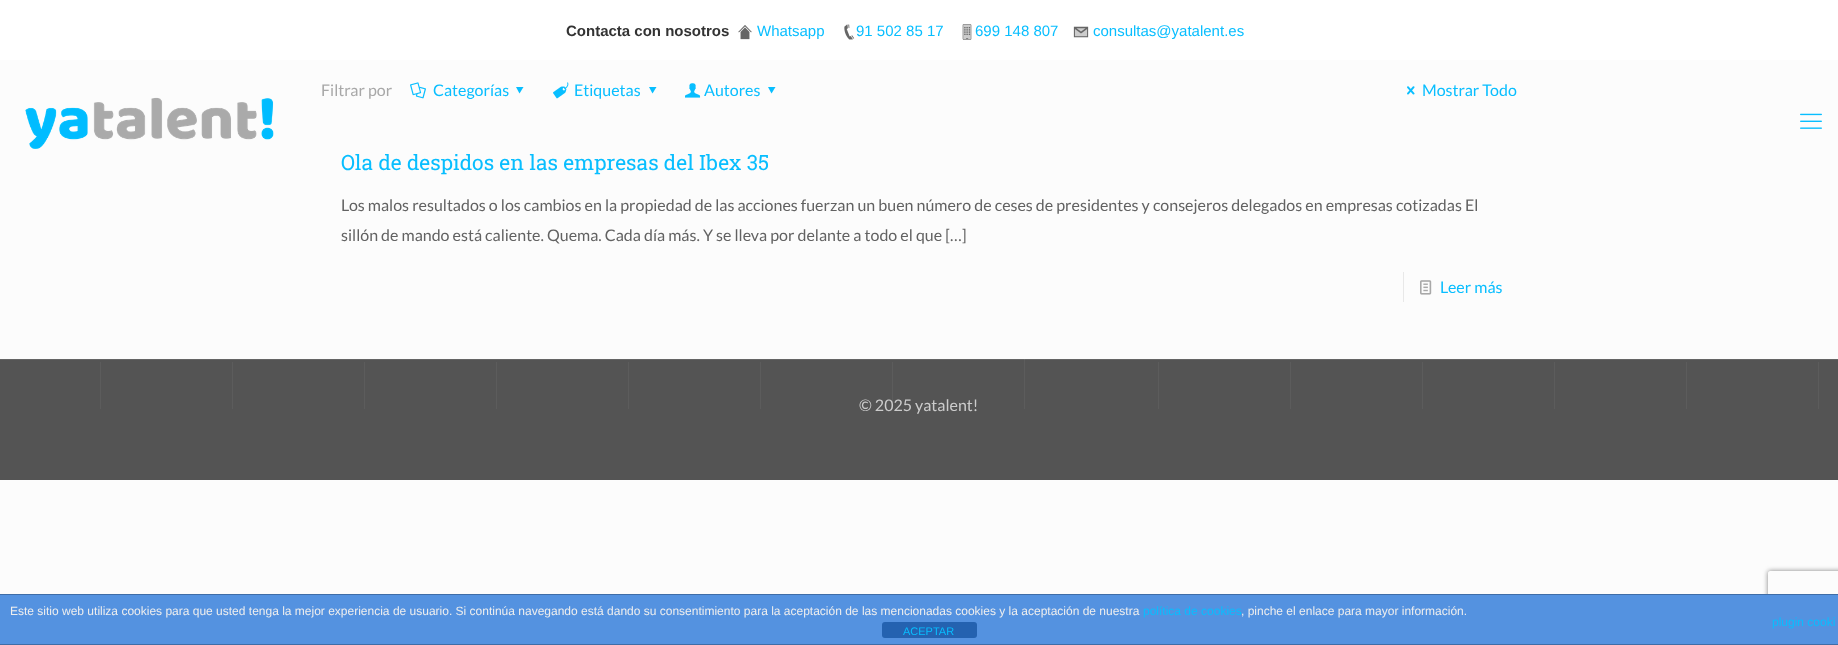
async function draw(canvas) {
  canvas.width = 1838
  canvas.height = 645
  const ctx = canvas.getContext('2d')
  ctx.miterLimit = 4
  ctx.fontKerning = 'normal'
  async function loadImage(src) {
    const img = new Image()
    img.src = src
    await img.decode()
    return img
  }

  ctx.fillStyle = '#fcfcfc'
  ctx.fillRect(0, 0, 1838, 645)
  ctx.fillStyle = '#fff'
  ctx.fillRect(0, 0, 1838, 60)
  ctx.font = 'bold 15px Liberation Sans'
  ctx.fillStyle = '#333'
  ctx.fillText('Contacta con nosotros', 566, 36)
  ctx.drawImage(await loadImage('image0.png'), 738, 25, 14, 15)
  ctx.font = '15px Liberation Sans'
  ctx.fillStyle = '#08beff'
  ctx.fillText('Whatsapp', 757, 36)
  ctx.drawImage(await loadImage('image1.png'), 844, 24, 11, 16)
  ctx.fillText('91 502 85 17', 856, 36)
  ctx.drawImage(await loadImage('image2.png'), 962, 24, 10, 16)
  ctx.fillText('699 148 807', 975, 36)
  ctx.drawImage(await loadImage('image3.png'), 1073, 26, 16, 12)
  ctx.fillText('consultas@yatalent.es', 1093, 36)
  ctx.font = '16px Lato'
  ctx.fillStyle = '#a8a8a8'
  ctx.fillText('Filtrar por', 321, 96)
  ctx.drawImage(await loadImage('image4.png'), 410, 82, 16, 17)
  ctx.fillStyle = '#08beff'
  ctx.fillText('Categorías', 433, 96)
  ctx.beginPath()
  ctx.moveTo(523.5, 87)
  ctx.lineTo(519.5, 93.5)
  ctx.lineTo(516, 87)
  ctx.closePath()
  ctx.fill()
  ctx.drawImage(await loadImage('image5.png'), 553, 82, 16, 17)
  ctx.fillText('Etiquetas', 574, 96)
  ctx.beginPath()
  ctx.moveTo(656.5, 87)
  ctx.lineTo(652.5, 93.5)
  ctx.lineTo(649, 87)
  ctx.closePath()
  ctx.fill()
  ctx.drawImage(await loadImage('image6.png'), 685, 83, 16, 15)
  ctx.fillText('Autores', 704, 96)
  ctx.beginPath()
  ctx.moveTo(775.5, 87)
  ctx.lineTo(771.5, 93.5)
  ctx.lineTo(768, 87)
  ctx.closePath()
  ctx.fill()
  ctx.drawImage(await loadImage('image7.png'), 1407, 86, 8, 9)
  ctx.fillText('Mostrar Todo', 1422, 96)
  ctx.font = '21px Roboto Slab'
  ctx.fillText('Ola de despidos en las empresas del Ibex 35', 341, 170)
  ctx.font = '16px Lato'
  ctx.fillStyle = '#626262'
  ctx.fillText('Los malos resultados o los cambios en la propiedad de las acciones fuerzan un buen número de ceses de presidentes y consejeros delegados en empresas cotizadas El', 341, 211)
  ctx.fillText('sillón de mando está caliente. Quema. Cada día más. Y se lleva por delante a todo el que […]', 341, 241)
  ctx.fillStyle = '#e8e8e8'
  ctx.fillRect(1403, 272, 1, 30)
  ctx.drawImage(await loadImage('image8.png'), 1420, 280, 12, 15)
  ctx.fillStyle = '#08beff'
  ctx.fillText('Leer más', 1440, 293)
  ctx.drawImage(await loadImage('image9.png'), 25, 97, 249, 52)
  ctx.drawImage(await loadImage('image10.png'), 1800, 113, 22, 16)
  ctx.fillStyle = '#545454'
  ctx.fillRect(0, 359, 1838, 121)
  ctx.drawImage(await loadImage('image11.png'), 100, 359, 1719, 50)
  ctx.fillStyle = '#ffffff1a'
  ctx.fillRect(0, 359, 1838, 1)
  ctx.fillStyle = '#ccc'
  ctx.fillText('© 2025 yatalent!', 859, 411)
  ctx.save()
  ctx.beginPath()
  ctx.moveTo(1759, 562)
  ctx.lineTo(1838, 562)
  ctx.lineTo(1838, 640)
  ctx.lineTo(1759, 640)
  ctx.closePath()
  ctx.moveTo(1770, 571)
  ctx.lineTo(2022, 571)
  ctx.bezierCurveTo(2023, 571, 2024, 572, 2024, 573)
  ctx.lineTo(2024, 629)
  ctx.bezierCurveTo(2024, 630, 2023, 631, 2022, 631)
  ctx.lineTo(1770, 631)
  ctx.bezierCurveTo(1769, 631, 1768, 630, 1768, 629)
  ctx.lineTo(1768, 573)
  ctx.bezierCurveTo(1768, 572, 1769, 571, 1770, 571)
  ctx.closePath()
  ctx.clip('evenodd')
  ctx.fillStyle = '#808080'
  ctx.filter = 'blur(2.5px)'
  ctx.beginPath()
  ctx.roundRect(1768, 571, 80, 60, 2)
  ctx.fill()
  ctx.filter = 'none'
  ctx.restore()
  ctx.fillStyle = '#5492e0'
  ctx.fillRect(0, 595, 1838, 49)
  ctx.fillStyle = '#3f6da7'
  ctx.fillRect(0, 594, 1838, 1)
  ctx.fillRect(0, 644, 1838, 1)
  ctx.font = '12px Liberation Sans'
  ctx.fillStyle = '#eee'
  ctx.fillText('Este sitio web utiliza cookies para que usted tenga la mejor experiencia de usuario. Si continúa navegando está dando su consentimiento para la aceptación de las mencionadas cookies y la aceptación de nuestra', 10, 615)
  ctx.fillStyle = '#08beff'
  ctx.fillText('política de cookies', 1143, 615)
  ctx.fillStyle = '#eee'
  ctx.fillText(', pinche el enlace para mayor información.', 1241, 615)
  ctx.fillStyle = '#08beff'
  ctx.fillText('plugin cooki', 1772, 626)
  ctx.fillStyle = '#2462b0'
  ctx.beginPath()
  ctx.roundRect(882, 622, 95, 16, 3)
  ctx.fill()
  ctx.font = '11px Liberation Sans'
  ctx.fillStyle = '#08beff'
  ctx.fillText('ACEPTAR', 903, 635)
}

draw(document.querySelector('canvas'))
